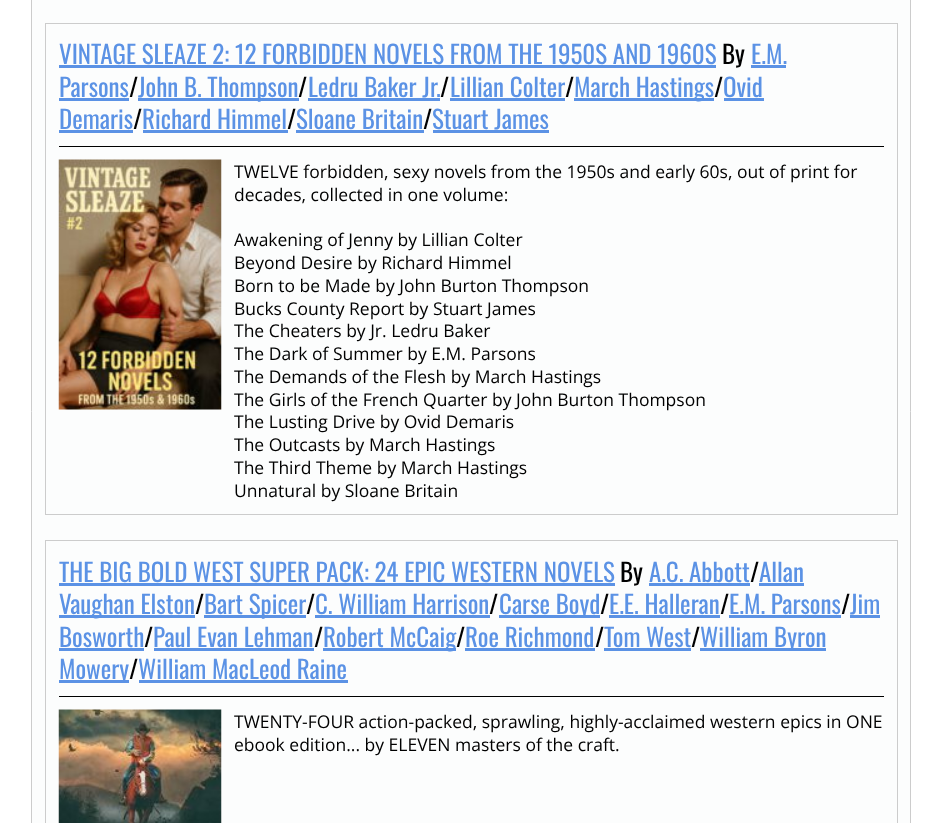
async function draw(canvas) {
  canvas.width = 942
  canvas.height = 823
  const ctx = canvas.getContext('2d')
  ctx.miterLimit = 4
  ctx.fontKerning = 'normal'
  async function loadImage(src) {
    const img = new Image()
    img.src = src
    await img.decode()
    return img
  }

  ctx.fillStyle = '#fff'
  ctx.fillRect(0, 0, 942, 823)
  ctx.fillStyle = '#fcfdfd'
  ctx.beginPath()
  ctx.rect(31.5, -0.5, 879, 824)
  ctx.fill()
  ctx.strokeStyle = '#ccc'
  ctx.stroke()
  ctx.strokeRect(45.5, 23.5, 852, 491)
  ctx.fillStyle = '#000'
  ctx.fillRect(59, 146, 825, 1)
  ctx.font = '25px Oswald'
  ctx.fillStyle = '#5b92e5'
  ctx.fillText('VINTAGE SLEAZE 2: 12 FORBIDDEN NOVELS FROM THE 1950S AND 1960S', 59, 64)
  ctx.fillRect(59, 65, 657, 3)
  ctx.fillStyle = '#000'
  ctx.fillText('By', 722, 64)
  ctx.fillStyle = '#5b92e5'
  ctx.fillText('E.M.', 751, 64)
  ctx.fillRect(751, 65, 35, 3)
  ctx.fillText('Parsons', 59, 97)
  ctx.fillRect(59, 98, 70, 3)
  ctx.fillStyle = '#000'
  ctx.fillText('/', 129, 97)
  ctx.fillStyle = '#5b92e5'
  ctx.fillRect(138, 98, 161, 3)
  ctx.fillText('John B. Thompson', 138, 97)
  ctx.fillStyle = '#000'
  ctx.fillText('/', 298, 97)
  ctx.fillStyle = '#5b92e5'
  ctx.fillText('Ledru Baker Jr.', 308, 97)
  ctx.fillRect(308, 98, 132, 3)
  ctx.fillStyle = '#000'
  ctx.fillText('/', 440, 97)
  ctx.fillStyle = '#5b92e5'
  ctx.fillText('Lillian Colter', 450, 97)
  ctx.fillRect(450, 98, 115, 3)
  ctx.fillStyle = '#000'
  ctx.fillText('/', 565, 97)
  ctx.fillStyle = '#5b92e5'
  ctx.fillRect(574, 98, 140, 3)
  ctx.fillText('March Hastings', 574, 97)
  ctx.fillStyle = '#000'
  ctx.fillText('/', 714, 97)
  ctx.fillStyle = '#5b92e5'
  ctx.fillText('Ovid', 723, 97)
  ctx.fillRect(724, 98, 40, 3)
  ctx.fillText('Demaris', 59, 129)
  ctx.fillRect(59, 130, 74, 3)
  ctx.fillStyle = '#000'
  ctx.fillText('/', 133, 129)
  ctx.fillStyle = '#5b92e5'
  ctx.fillText('Richard Himmel', 142, 129)
  ctx.fillRect(143, 130, 145, 3)
  ctx.fillStyle = '#000'
  ctx.fillText('/', 287, 129)
  ctx.fillStyle = '#5b92e5'
  ctx.fillText('Sloane Britain', 296, 129)
  ctx.fillRect(296, 130, 128, 3)
  ctx.fillStyle = '#000'
  ctx.fillText('/', 423, 129)
  ctx.fillStyle = '#5b92e5'
  ctx.fillText('Stuart James', 432, 129)
  ctx.fillRect(433, 130, 116, 3)
  ctx.drawImage(await loadImage('image0.png'), 58, 159, 164, 251)
  ctx.font = '17.5px Open Sans'
  ctx.fillStyle = '#000'
  ctx.fillText('TWELVE forbidden, sexy novels from the 1950s and early 60s, out of print for', 234, 178)
  ctx.fillText('decades, collected in one volume:', 234, 201)
  ctx.fillText('Awakening of Jenny by Lillian Colter', 234, 246)
  ctx.fillText('Beyond Desire by Richard Himmel', 234, 269)
  ctx.fillText('Born to be Made by John Burton Thompson', 234, 292)
  ctx.fillText('Bucks County Report by Stuart James', 234, 315)
  ctx.fillText('The Cheaters by Jr. Ledru Baker', 234, 337)
  ctx.fillText('The Dark of Summer by E.M. Parsons', 234, 360)
  ctx.fillText('The Demands of the Flesh by March Hastings', 234, 383)
  ctx.fillText('The Girls of the French Quarter by John Burton Thompson', 234, 406)
  ctx.fillText('The Lusting Drive by Ovid Demaris', 234, 428)
  ctx.fillText('The Outcasts by March Hastings', 234, 451)
  ctx.fillText('The Third Theme by March Hastings', 234, 474)
  ctx.fillText('Unnatural by Sloane Britain', 234, 497)
  ctx.strokeRect(45.5, 540.5, 852, 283)
  ctx.fillRect(59, 696, 825, 1)
  ctx.font = '25px Oswald'
  ctx.fillStyle = '#5b92e5'
  ctx.fillText('THE BIG BOLD WEST SUPER PACK: 24 EPIC WESTERN NOVELS', 59, 582)
  ctx.fillRect(59, 583, 556, 3)
  ctx.fillStyle = '#000'
  ctx.fillText('By', 620, 582)
  ctx.fillStyle = '#5b92e5'
  ctx.fillText('A.C. Abbott', 649, 582)
  ctx.fillRect(649, 583, 101, 3)
  ctx.fillStyle = '#000'
  ctx.fillText('/', 750, 582)
  ctx.fillStyle = '#5b92e5'
  ctx.fillText('Allan', 759, 582)
  ctx.fillRect(759, 583, 45, 3)
  ctx.fillRect(59, 615, 136, 3)
  ctx.fillText('Vaughan Elston', 59, 614)
  ctx.fillStyle = '#000'
  ctx.fillText('/', 195, 614)
  ctx.fillStyle = '#5b92e5'
  ctx.fillRect(204, 615, 102, 3)
  ctx.fillText('Bart Spicer', 204, 614)
  ctx.fillStyle = '#000'
  ctx.fillText('/', 306, 614)
  ctx.fillStyle = '#5b92e5'
  ctx.fillText('C. William Harrison', 315, 614)
  ctx.fillRect(315, 615, 175, 3)
  ctx.fillStyle = '#000'
  ctx.fillText('/', 489, 614)
  ctx.fillStyle = '#5b92e5'
  ctx.fillRect(499, 615, 101, 3)
  ctx.fillText('Carse Boyd', 499, 614)
  ctx.fillStyle = '#000'
  ctx.fillText('/', 600, 614)
  ctx.fillStyle = '#5b92e5'
  ctx.fillText('E.E. Halleran', 609, 614)
  ctx.fillRect(609, 615, 111, 3)
  ctx.fillStyle = '#000'
  ctx.fillText('/', 720, 614)
  ctx.fillStyle = '#5b92e5'
  ctx.fillText('E.M. Parsons', 729, 614)
  ctx.fillRect(729, 615, 112, 3)
  ctx.fillStyle = '#000'
  ctx.fillText('/', 841, 614)
  ctx.fillStyle = '#5b92e5'
  ctx.fillText('Jim', 850, 614)
  ctx.fillRect(850, 615, 30, 3)
  ctx.fillText('Bosworth', 59, 647)
  ctx.fillRect(59, 648, 85, 3)
  ctx.fillStyle = '#000'
  ctx.fillText('/', 144, 647)
  ctx.fillStyle = '#5b92e5'
  ctx.fillText('Paul Evan Lehman', 153, 647)
  ctx.fillRect(154, 648, 160, 3)
  ctx.fillStyle = '#000'
  ctx.fillText('/', 314, 647)
  ctx.fillStyle = '#5b92e5'
  ctx.fillRect(323, 648, 133, 3)
  ctx.fillText('Robert McCaig', 323, 647)
  ctx.fillStyle = '#000'
  ctx.fillText('/', 456, 647)
  ctx.fillStyle = '#5b92e5'
  ctx.fillText('Roe Richmond', 465, 647)
  ctx.fillRect(465, 648, 130, 3)
  ctx.fillStyle = '#000'
  ctx.fillText('/', 595, 647)
  ctx.fillStyle = '#5b92e5'
  ctx.fillText('Tom West', 604, 647)
  ctx.fillRect(604, 648, 87, 3)
  ctx.fillStyle = '#000'
  ctx.fillText('/', 691, 647)
  ctx.fillStyle = '#5b92e5'
  ctx.fillRect(700, 648, 126, 3)
  ctx.fillText('William Byron', 700, 647)
  ctx.fillRect(59, 680, 70, 3)
  ctx.fillText('Mowery', 59, 679)
  ctx.fillStyle = '#000'
  ctx.fillText('/', 129, 679)
  ctx.fillStyle = '#5b92e5'
  ctx.fillText('William MacLeod Raine', 138, 679)
  ctx.fillRect(139, 680, 209, 3)
  ctx.drawImage(await loadImage('image1.png'), 58, 709, 164, 114)
  ctx.font = '17.5px Open Sans'
  ctx.fillStyle = '#000'
  ctx.fillText('TWENTY-FOUR action-packed, sprawling, highly-acclaimed western epics in ONE', 234, 728)
  ctx.fillText('ebook edition... by ELEVEN masters of the craft.', 234, 751)
}

draw(document.querySelector('canvas'))
